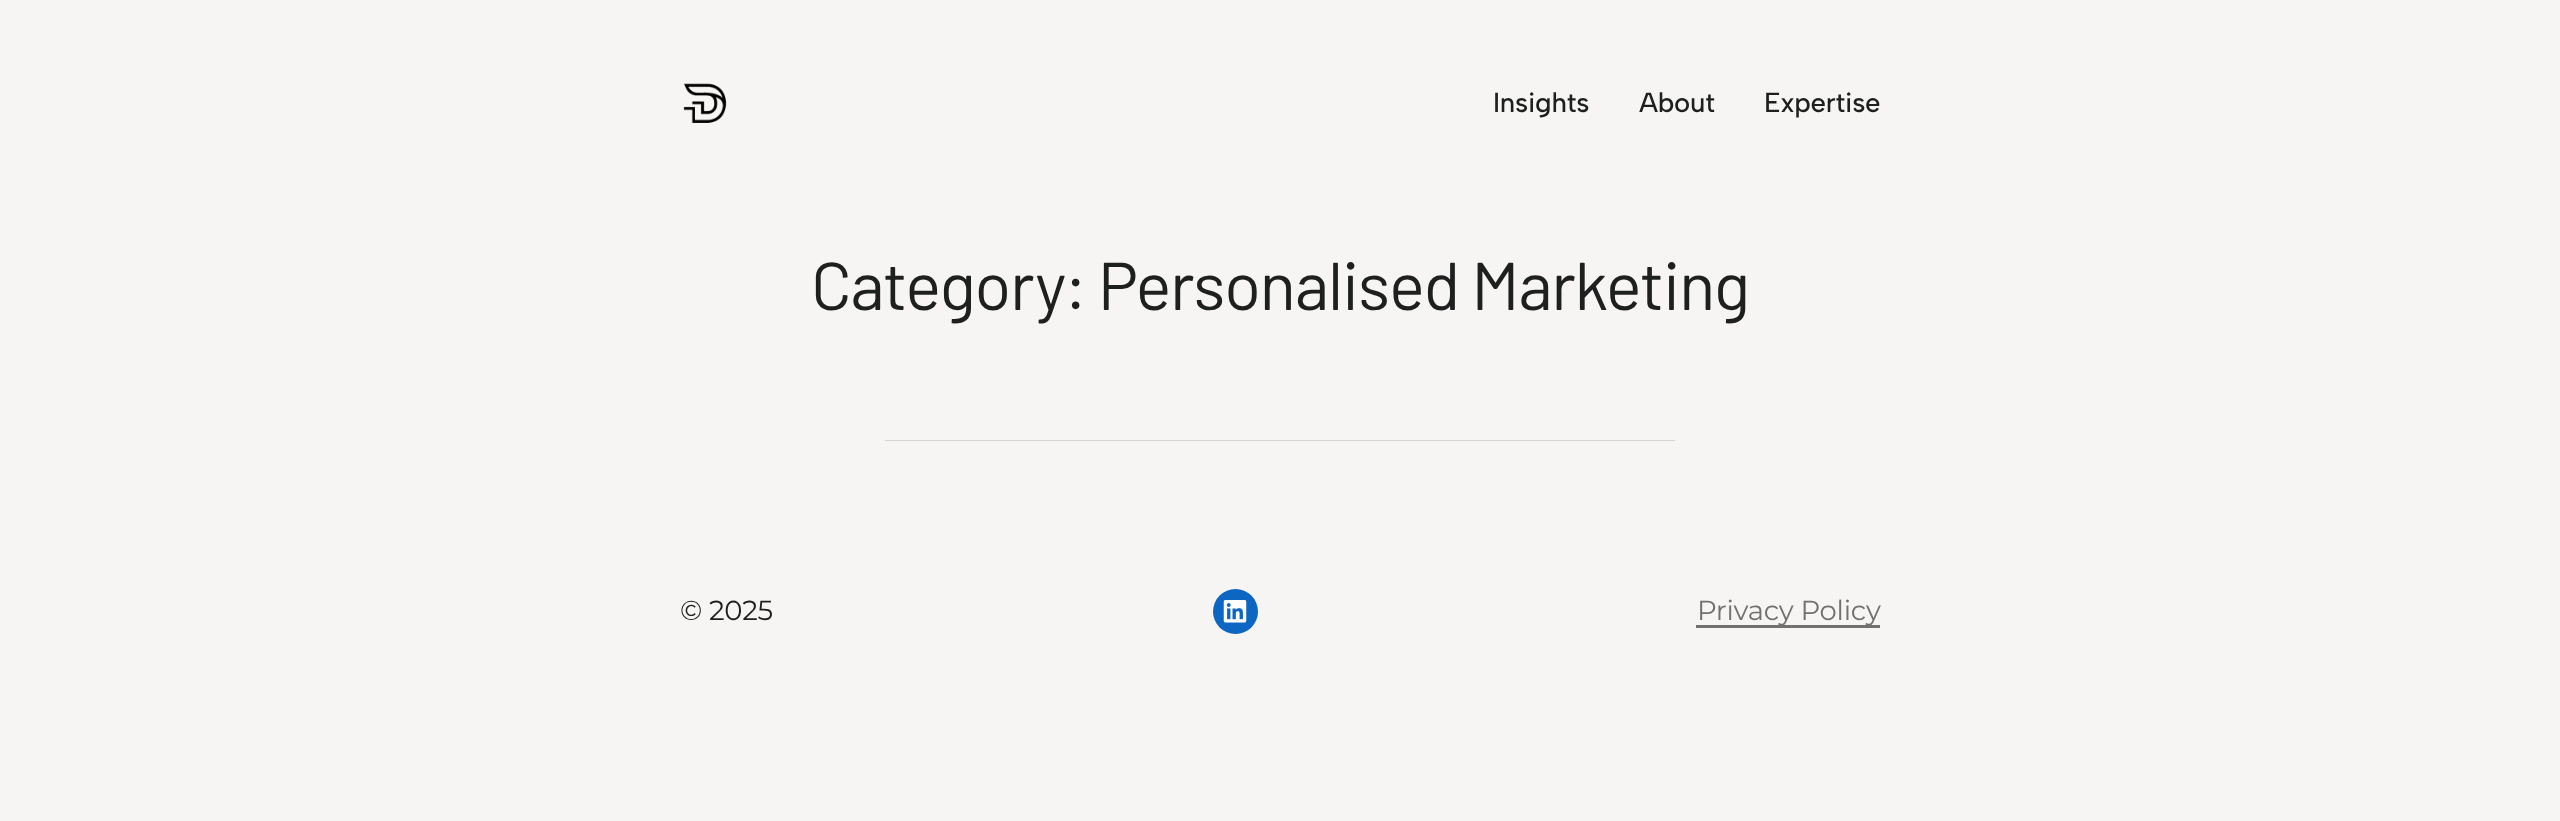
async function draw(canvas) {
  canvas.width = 2560
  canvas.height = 821
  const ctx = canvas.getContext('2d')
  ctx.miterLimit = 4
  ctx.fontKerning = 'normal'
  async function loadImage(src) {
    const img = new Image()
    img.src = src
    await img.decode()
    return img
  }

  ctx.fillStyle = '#f7f5f3'
  ctx.fillRect(0, 0, 2560, 821)
  ctx.drawImage(await loadImage('image0.png'), 683, 83, 44, 40)
  ctx.letterSpacing = '-0.25px'
  ctx.font = '500 27.5px Albert Sans'
  ctx.fillStyle = '#1d201f'
  ctx.fillText('Insights', 1493, 112)
  ctx.fillText('About', 1639, 112)
  ctx.fillText('Expertise', 1764, 112)
  ctx.letterSpacing = '-1.35px'
  ctx.font = '67.5px Barlow'
  ctx.fillText('Category: Personalised Marketing', 811, 310)
  ctx.fillStyle = '#d6d5d3'
  ctx.fillRect(885, 440, 790, 1)
  ctx.letterSpacing = '-0.25px'
  ctx.font = '100 27.5px Montserrat'
  ctx.fillStyle = '#1d201f'
  ctx.fillText('© 2025', 680, 620)
  ctx.fillStyle = '#0d66c2'
  ctx.beginPath()
  ctx.arc(1235.5, 611.5, 22.5, 0, 2 * Math.PI)
  ctx.fill()
  ctx.drawImage(await loadImage('image1.png'), 1223, 600, 24, 23)
  ctx.fillStyle = '#707170'
  ctx.fillRect(1696, 625, 184, 3)
  ctx.fillText('Privacy Policy', 1697, 620)
}

draw(document.querySelector('canvas'))
